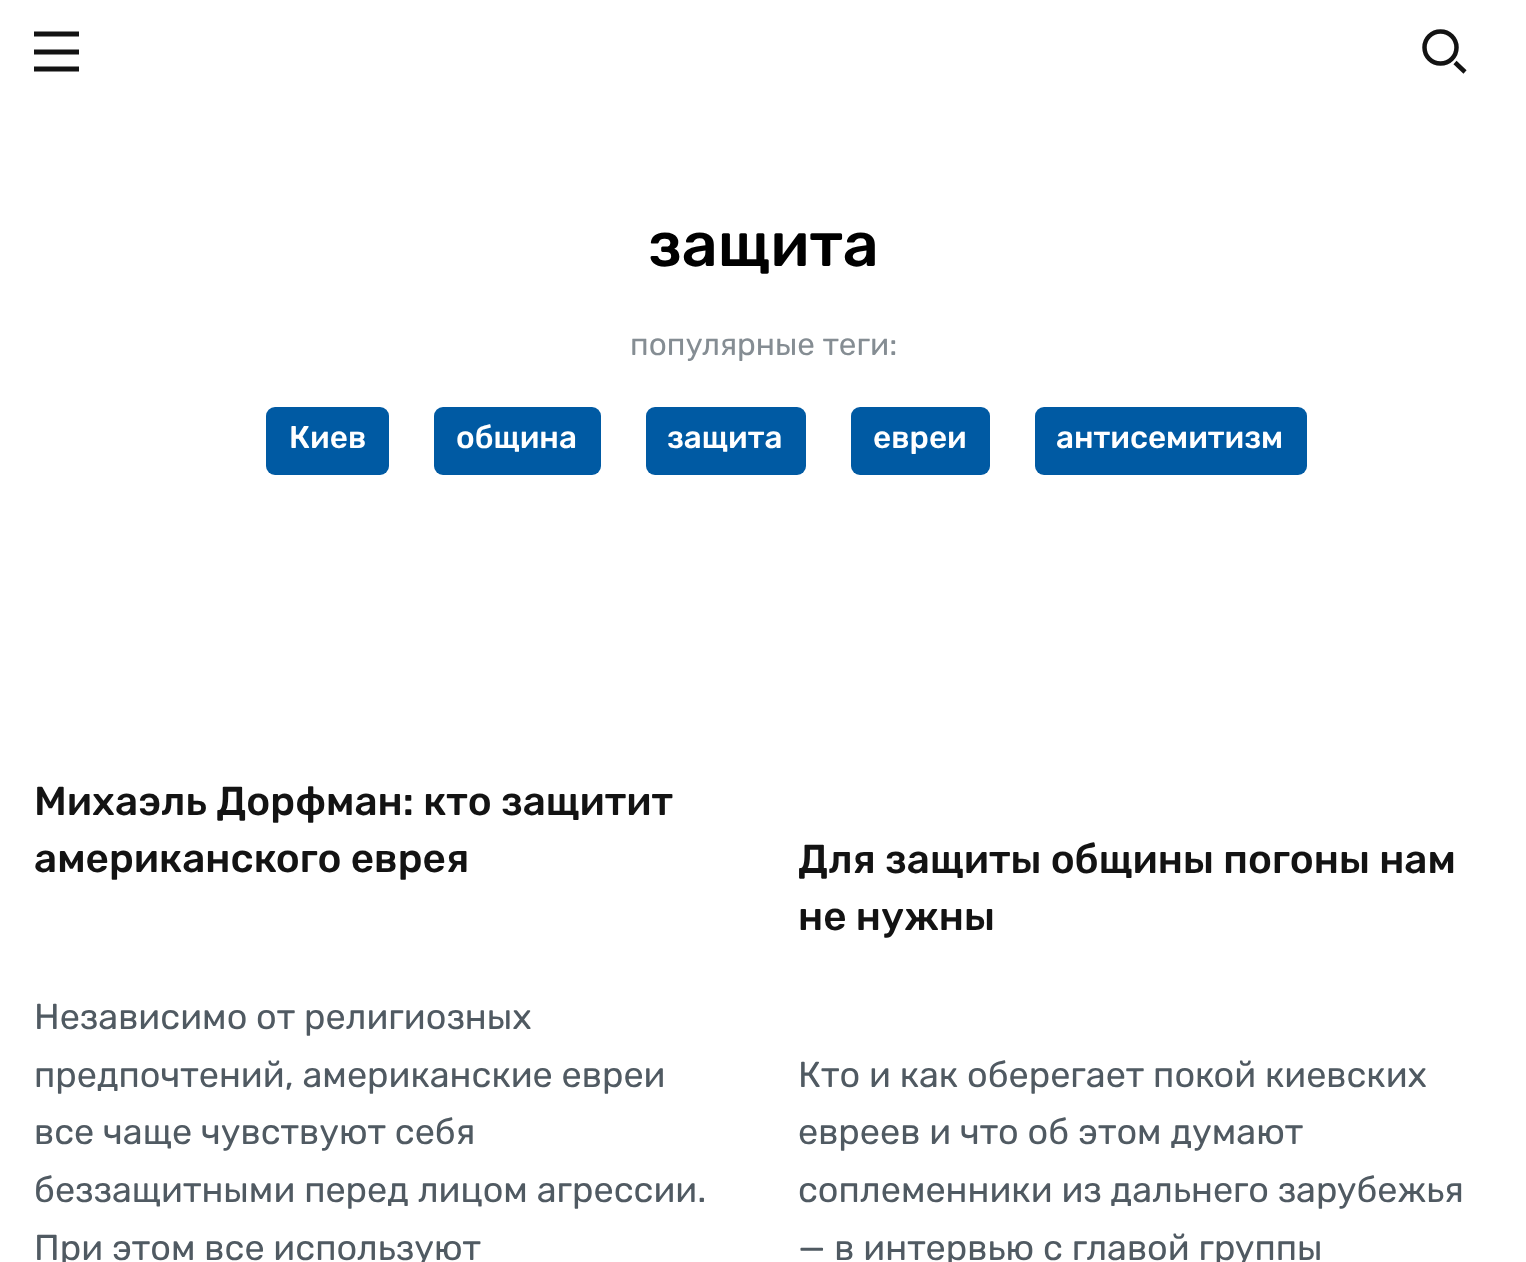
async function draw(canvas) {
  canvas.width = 1526
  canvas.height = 1262
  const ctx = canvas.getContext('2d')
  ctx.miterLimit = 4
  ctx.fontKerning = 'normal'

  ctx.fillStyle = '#fff'
  ctx.fillRect(0, 0, 1526, 1262)
  ctx.beginPath()
  ctx.moveTo(79, 52)
  ctx.lineTo(34, 52)
  ctx.moveTo(79, 34)
  ctx.lineTo(34, 34)
  ctx.moveTo(79, 69)
  ctx.lineTo(34, 69)
  ctx.strokeStyle = '#131313'
  ctx.lineWidth = 5
  ctx.stroke()
  ctx.beginPath()
  ctx.arc(1440.5, 47.5, 16, 0, 2 * Math.PI)
  ctx.lineWidth = 4.5
  ctx.stroke()
  ctx.beginPath()
  ctx.moveTo(1455, 62.5)
  ctx.lineTo(1465, 72)
  ctx.stroke()
  ctx.font = '500 63px Rubik'
  ctx.fillStyle = '#000'
  ctx.fillText('защита', 648, 266)
  ctx.font = '31.5px Rubik'
  ctx.fillStyle = '#858d93'
  ctx.fillText('популярные теги:', 630, 355)
  ctx.fillStyle = '#005aa3'
  ctx.beginPath()
  ctx.roundRect(266, 407, 123, 68, 9)
  ctx.fill()
  ctx.font = '500 31.5px Rubik'
  ctx.fillStyle = '#fff'
  ctx.fillText('Киев', 289, 448)
  ctx.fillStyle = '#005aa3'
  ctx.beginPath()
  ctx.roundRect(434, 407, 167, 68, 9)
  ctx.fill()
  ctx.fillStyle = '#fff'
  ctx.fillText('община', 456, 448)
  ctx.fillStyle = '#005aa3'
  ctx.beginPath()
  ctx.roundRect(646, 407, 160, 68, 9)
  ctx.fill()
  ctx.fillStyle = '#fff'
  ctx.fillText('защита', 667, 448)
  ctx.fillStyle = '#005aa3'
  ctx.beginPath()
  ctx.roundRect(851, 407, 139, 68, 9)
  ctx.fill()
  ctx.fillStyle = '#fff'
  ctx.fillText('евреи', 873, 448)
  ctx.fillStyle = '#005aa3'
  ctx.beginPath()
  ctx.roundRect(1035, 407, 272, 68, 9)
  ctx.fill()
  ctx.fillStyle = '#fff'
  ctx.fillText('антисемитизм', 1056, 448)
  ctx.font = '500 40.5px Rubik'
  ctx.fillStyle = '#131313'
  ctx.fillText('Михаэль Дорфман: кто защитит', 34, 815)
  ctx.fillText('американского еврея', 34, 872)
  ctx.font = '36px Rubik'
  ctx.fillStyle = '#505a62'
  ctx.fillText('Независимо от религиозных', 34, 1029)
  ctx.fillText('предпочтений, американские евреи', 34, 1087)
  ctx.fillText('все чаще чувствуют себя', 34, 1144)
  ctx.fillText('беззащитными перед лицом агрессии.', 34, 1202)
  ctx.fillText('При этом все используют', 34, 1260)
  ctx.save()
  ctx.beginPath()
  ctx.rect(799, 833, 695, 168)
  ctx.clip()
  ctx.font = '500 40.5px Rubik'
  ctx.fillStyle = '#131313'
  ctx.fillText('Для защиты общины погоны нам', 798, 873)
  ctx.restore()
  ctx.font = '500 40.5px Rubik'
  ctx.fillStyle = '#131313'
  ctx.fillText('не нужны', 798, 930)
  ctx.font = '36px Rubik'
  ctx.fillStyle = '#505a62'
  ctx.fillText('Кто и как оберегает покой киевских', 798, 1087)
  ctx.fillText('евреев и что об этом думают', 798, 1144)
  ctx.fillText('соплеменники из дальнего зарубежья', 798, 1202)
  ctx.fillText('— в интервью с главой группы', 798, 1260)
}

draw(document.querySelector('canvas'))
